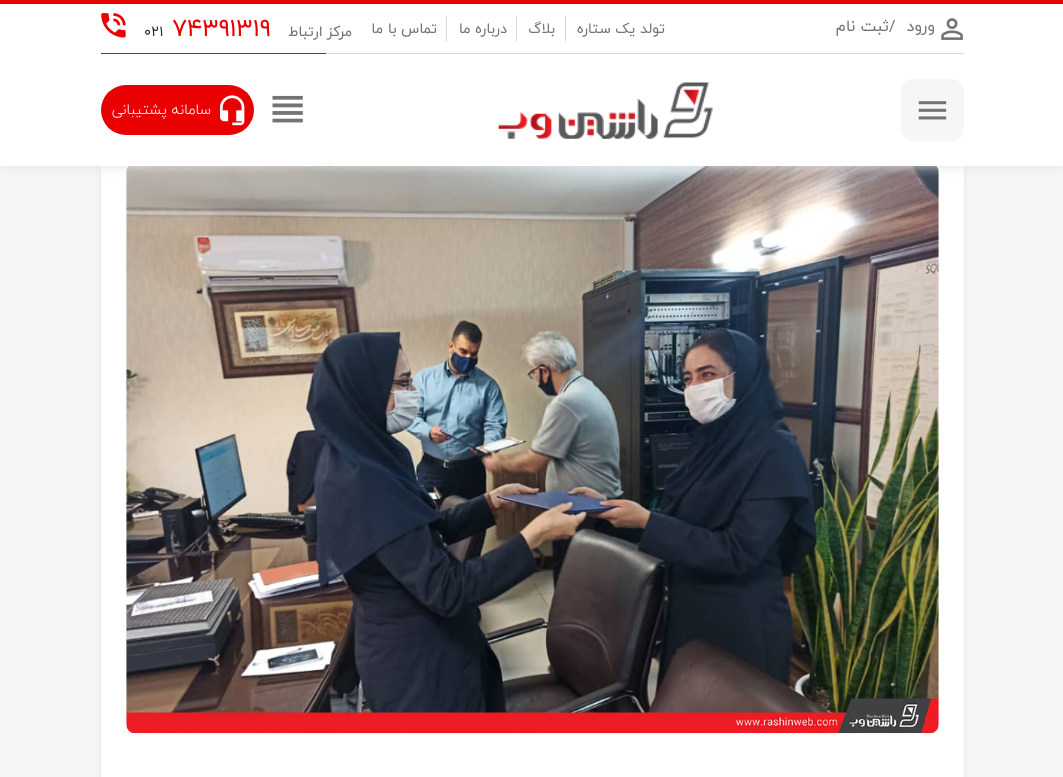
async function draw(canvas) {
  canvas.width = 1063
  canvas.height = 777
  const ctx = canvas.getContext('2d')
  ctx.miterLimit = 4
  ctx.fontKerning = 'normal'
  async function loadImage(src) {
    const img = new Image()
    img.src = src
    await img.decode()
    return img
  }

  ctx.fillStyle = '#f6f6f6'
  ctx.fillRect(0, 0, 1063, 777)
  ctx.fillStyle = '#e3e3e3'
  ctx.filter = 'blur(3px)'
  ctx.beginPath()
  ctx.roundRect(101, 139, 863, 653, 6)
  ctx.fill()
  ctx.filter = 'none'
  ctx.fillStyle = '#fff'
  ctx.fillRect(101, 166, 863, 611)
  ctx.drawImage(await loadImage('image6.png'), 126, 166, 813, 568)
  ctx.fillStyle = '#e3e3e3'
  ctx.filter = 'blur(6px)'
  ctx.beginPath()
  ctx.rect(0, 0, 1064, 166)
  ctx.fill()
  ctx.filter = 'none'
  ctx.fillStyle = '#fff'
  ctx.fillRect(0, 4, 1063, 162)
  ctx.fillStyle = '#e90000'
  ctx.fillRect(0, 0, 1063, 4)
  ctx.fillStyle = '#d6d6d6'
  ctx.fillRect(326, 53, 638, 1)
  ctx.drawImage(await loadImage('image0.png'), 941, 18, 22, 22)
  ctx.direction = 'rtl'
  ctx.font = '16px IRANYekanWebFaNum'
  ctx.fillStyle = '#747474'
  ctx.fillText('ورود', 935, 31)
  ctx.direction = 'ltr'
  ctx.fillText('/', 889, 31)
  ctx.direction = 'rtl'
  ctx.fillText('ثبت نام', 889, 31)
  ctx.fillStyle = '#d6d6d6'
  ctx.fillRect(565, 16, 1, 25)
  ctx.font = '14.5px IRANYekanWebFaNum'
  ctx.fillStyle = '#747474'
  ctx.fillText('تولد یک ستاره', 665, 33)
  ctx.fillStyle = '#d6d6d6'
  ctx.fillRect(516, 16, 1, 25)
  ctx.fillStyle = '#747474'
  ctx.fillText('بلاگ', 555, 33)
  ctx.fillStyle = '#d6d6d6'
  ctx.fillRect(446, 16, 1, 25)
  ctx.fillStyle = '#747474'
  ctx.fillText('درباره ما', 507, 33)
  ctx.fillText('تماس با ما', 437, 33)
  ctx.fillText('مرکز ارتباط', 352, 36)
  ctx.direction = 'ltr'
  ctx.font = '24.5px IRANYekanWebFaNum'
  ctx.fillStyle = '#e90000'
  ctx.fillText('74391319', 172, 36)
  ctx.font = '14.5px IRANYekanWebFaNum'
  ctx.fillStyle = '#2e2e2e'
  ctx.fillText('021', 144, 36)
  ctx.drawImage(await loadImage('image1.png'), 101, 13, 25, 25)
  ctx.fillStyle = '#e90000'
  ctx.fillRect(101, 53, 225, 1)
  ctx.fillStyle = '#f6f6f6'
  ctx.beginPath()
  ctx.roundRect(901, 79, 63, 62, 13)
  ctx.fill()
  ctx.drawImage(await loadImage('image2.png'), 918, 101, 29, 19)
  ctx.drawImage(await loadImage('image3.png'), 498, 82, 215, 57)
  ctx.drawImage(await loadImage('image4.png'), 272, 95, 31, 28)
  ctx.fillStyle = '#e90000'
  ctx.beginPath()
  ctx.roundRect(101, 85, 153, 50, 25)
  ctx.fill()
  ctx.drawImage(await loadImage('image5.png'), 220, 95, 25, 31)
  ctx.direction = 'rtl'
  ctx.font = '300 14.5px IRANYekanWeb'
  ctx.fillStyle = '#fff'
  ctx.fillText('سامانه پشتیبانی', 211, 114)
}

draw(document.querySelector('canvas'))
